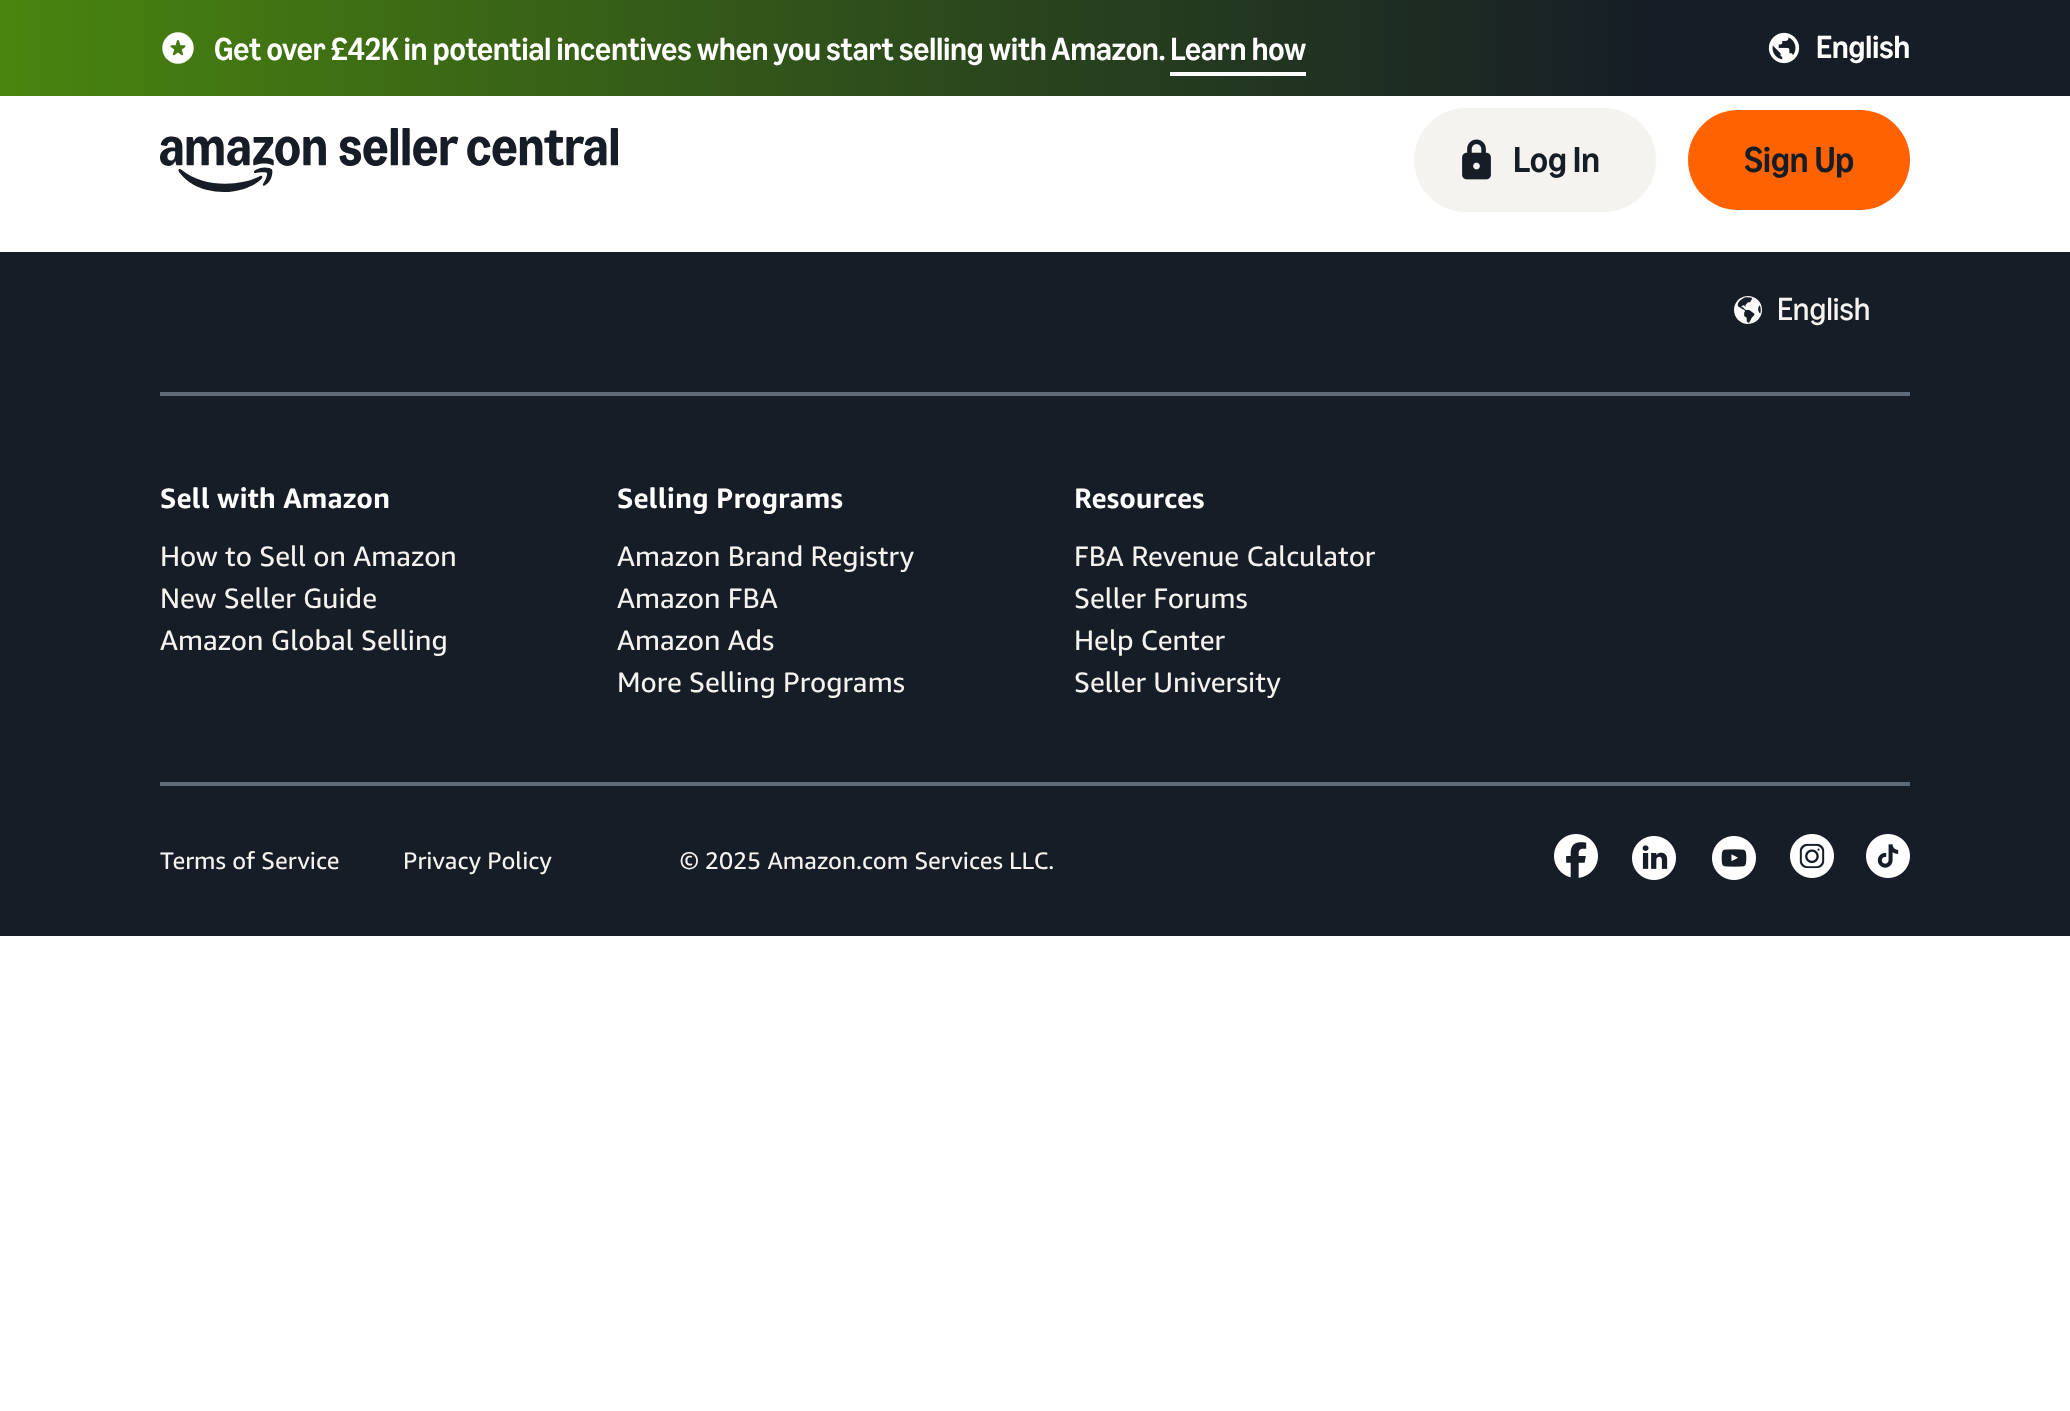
async function draw(canvas) {
  canvas.width = 2070
  canvas.height = 1411
  const ctx = canvas.getContext('2d')
  ctx.miterLimit = 4
  ctx.fontKerning = 'normal'
  async function loadImage(src) {
    const img = new Image()
    img.src = src
    await img.decode()
    return img
  }
  let gradient

  ctx.fillStyle = '#fff'
  ctx.fillRect(0, 0, 2070, 1411)
  gradient = ctx.createLinearGradient(0, 48, 2070, 48)
  gradient.addColorStop(0, '#49850f')
  gradient.addColorStop(0.8, '#161d26')
  ctx.fillStyle = gradient
  ctx.fillRect(0, 0, 2070, 96)
  ctx.drawImage(await loadImage('image0.png'), 162, 32, 32, 32)
  ctx.font = '500 32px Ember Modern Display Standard'
  ctx.fillStyle = '#fff'
  ctx.fillText('Get over £42K in potential incentives when you start selling with Amazon. Learn how', 214, 60)
  ctx.fillRect(1170, 72, 136, 4)
  ctx.drawImage(await loadImage('image1.png'), 1768, 32, 32, 32)
  ctx.fillText('English', 1816, 58)
  ctx.drawImage(await loadImage('image2.png'), 160, 128, 458, 64)
  ctx.fillStyle = '#f5f3ef'
  ctx.beginPath()
  ctx.roundRect(1414, 108, 242, 104, 52)
  ctx.fill()
  ctx.drawImage(await loadImage('image3.png'), 1462, 139, 29, 41)
  ctx.font = '500 36px Ember Modern Display Standard'
  ctx.fillStyle = '#161d26'
  ctx.fillText('Log In', 1513, 172)
  ctx.fillStyle = '#ff6200'
  ctx.beginPath()
  ctx.roundRect(1688, 110, 222, 100, 50)
  ctx.fill()
  ctx.fillStyle = '#161d26'
  ctx.fillText('Sign Up', 1744, 172)
  ctx.fillRect(0, 252, 2070, 684)
  ctx.drawImage(await loadImage('image4.png'), 1734, 296, 28, 28)
  ctx.font = '32px Ember Modern Display Standard'
  ctx.fillStyle = '#f5f3ef'
  ctx.fillText('English', 1777, 320)
  ctx.fillStyle = '#5e6a78'
  ctx.fillRect(160, 392, 1750, 4)
  ctx.fillRect(160, 782, 1750, 4)
  ctx.font = 'bold 28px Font'
  ctx.fillStyle = '#fff'
  ctx.fillText('Sell with Amazon', 160, 508)
  ctx.font = '28px Font'
  ctx.fillStyle = '#f5f3ef'
  ctx.fillText('How to Sell on Amazon', 160, 566)
  ctx.fillText('New Seller Guide', 160, 608)
  ctx.fillText('Amazon Global Selling', 160, 650)
  ctx.font = 'bold 28px Font'
  ctx.fillStyle = '#fff'
  ctx.fillText('Selling Programs', 617, 508)
  ctx.font = '28px Font'
  ctx.fillStyle = '#f5f3ef'
  ctx.fillText('Amazon Brand Registry', 617, 566)
  ctx.fillText('Amazon FBA', 617, 608)
  ctx.fillText('Amazon Ads', 617, 650)
  ctx.fillText('More Selling Programs', 617, 692)
  ctx.font = 'bold 28px Font'
  ctx.fillStyle = '#fff'
  ctx.fillText('Resources', 1074, 508)
  ctx.font = '28px Font'
  ctx.fillStyle = '#f5f3ef'
  ctx.fillText('FBA Revenue Calculator', 1074, 566)
  ctx.fillText('Seller Forums', 1074, 608)
  ctx.fillText('Help Center', 1074, 650)
  ctx.fillText('Seller University', 1074, 692)
  ctx.font = '24px Font'
  ctx.fillText('Terms of Service', 160, 869)
  ctx.fillText('Privacy Policy', 403, 869)
  ctx.fillText('© 2025 Amazon.com Services LLC.', 680, 869)
  ctx.drawImage(await loadImage('image5.png'), 1554, 834, 44, 44)
  ctx.drawImage(await loadImage('image6.png'), 1632, 836, 44, 44)
  ctx.drawImage(await loadImage('image7.png'), 1712, 836, 44, 44)
  ctx.drawImage(await loadImage('image8.png'), 1790, 834, 44, 44)
  ctx.drawImage(await loadImage('image9.png'), 1866, 834, 44, 44)
}

draw(document.querySelector('canvas'))
